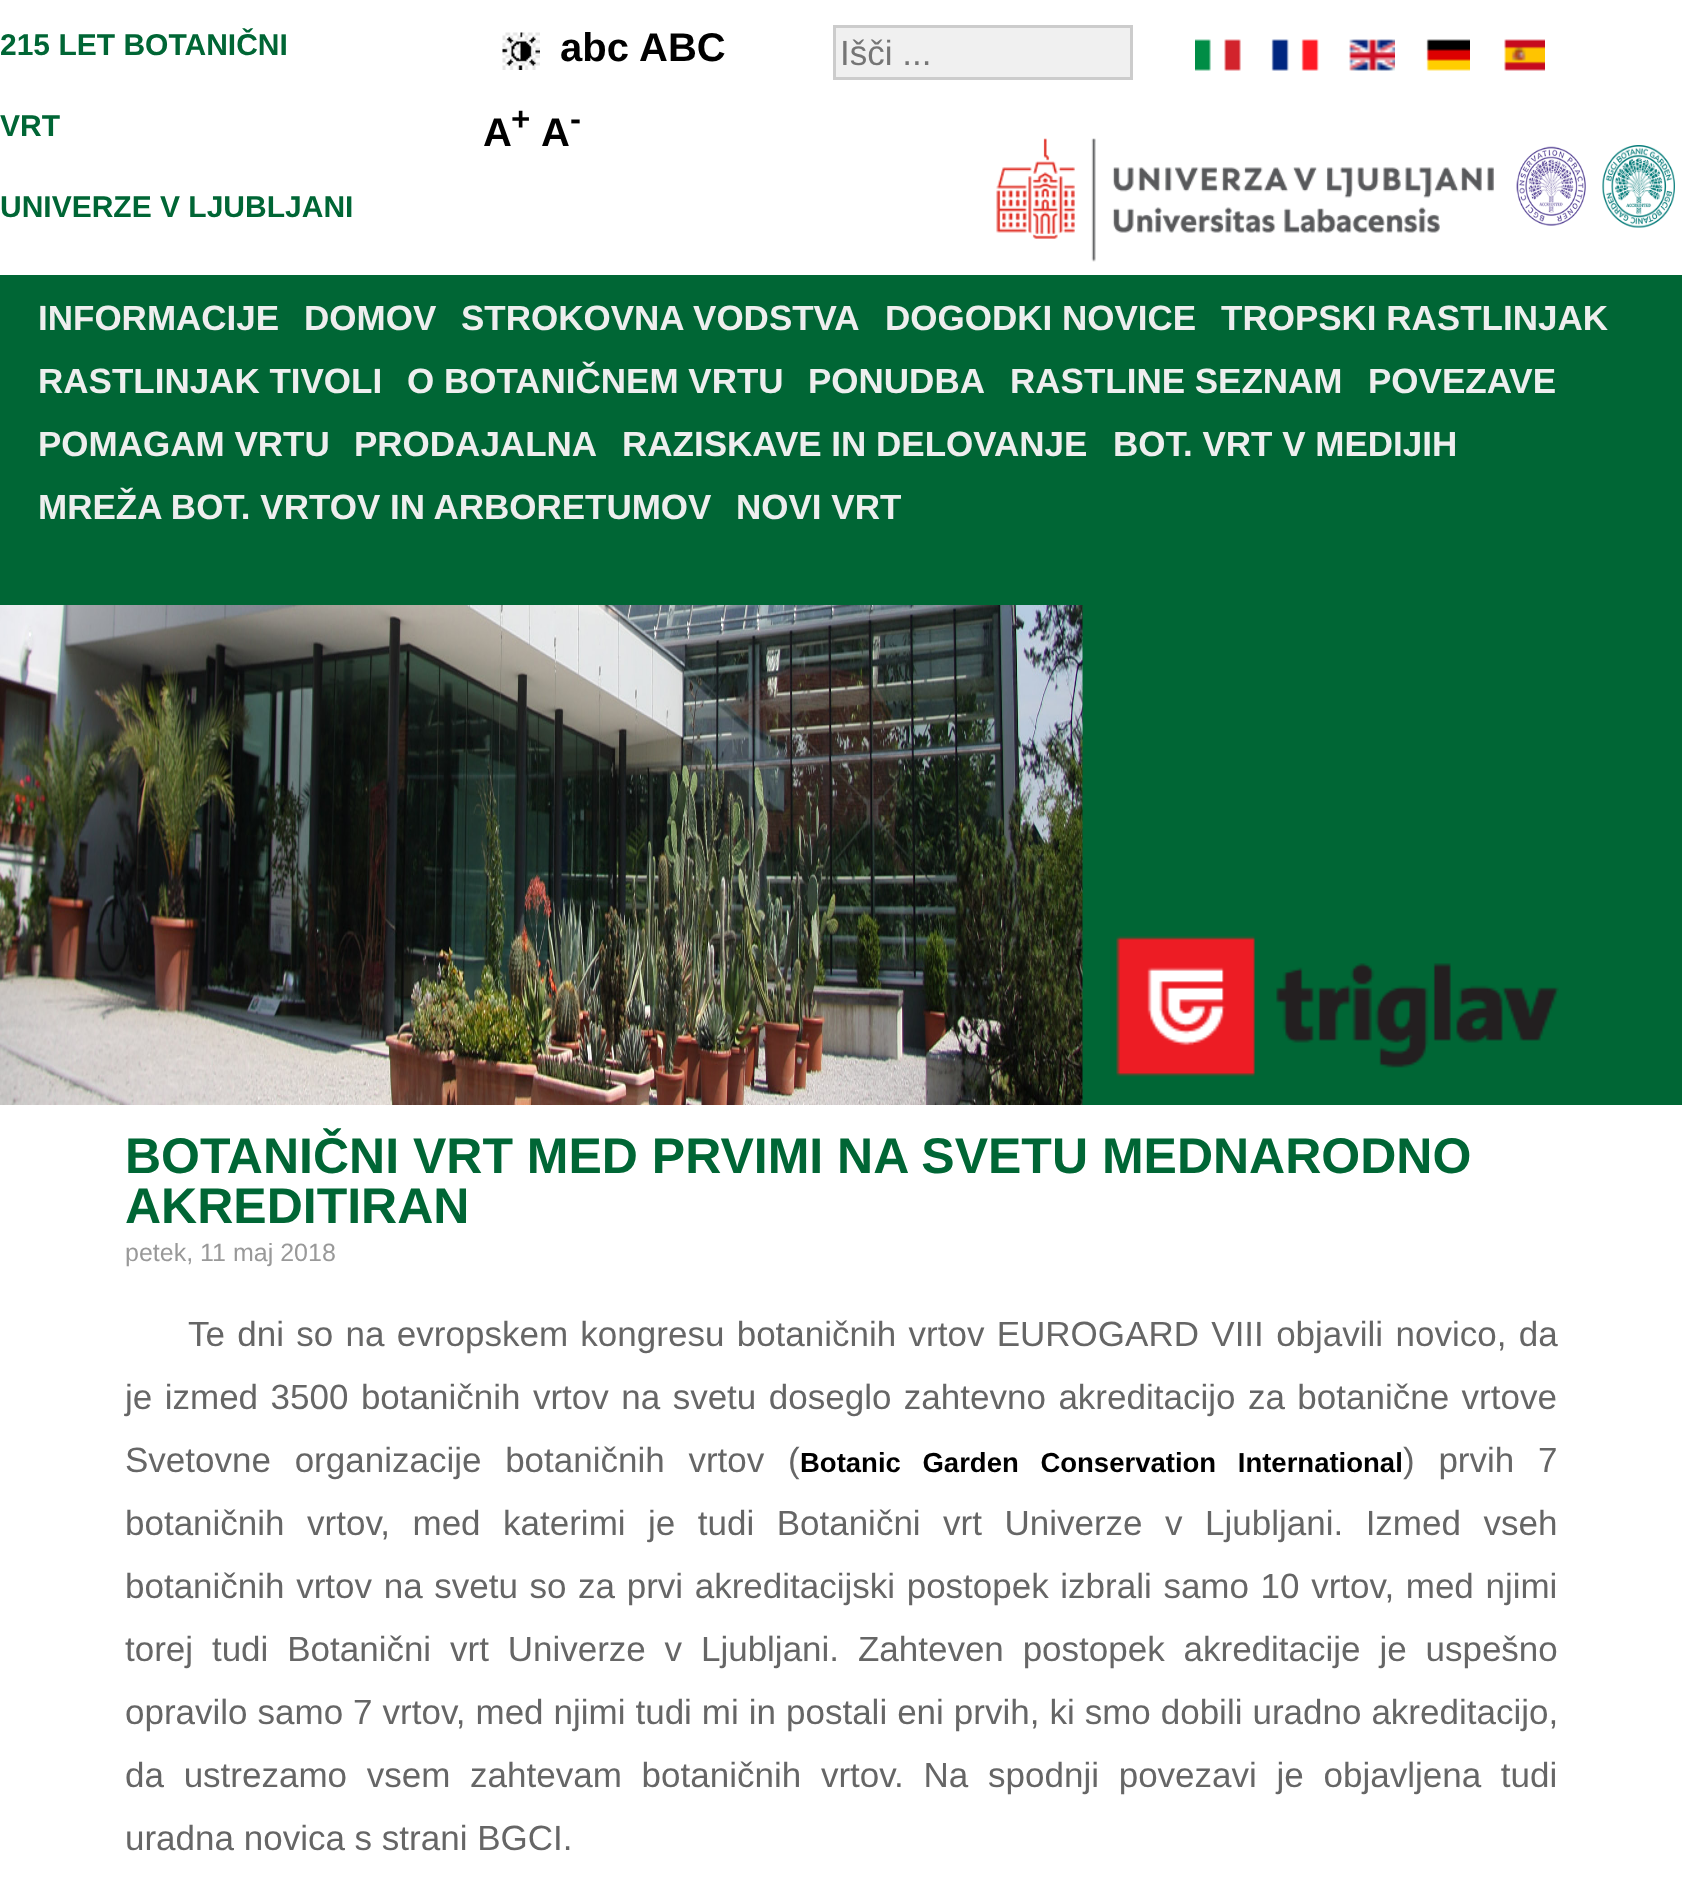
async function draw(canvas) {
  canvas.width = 1682
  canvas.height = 1895
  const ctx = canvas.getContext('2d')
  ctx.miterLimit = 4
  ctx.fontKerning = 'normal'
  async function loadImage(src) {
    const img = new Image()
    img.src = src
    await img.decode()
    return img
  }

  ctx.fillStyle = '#fff'
  ctx.fillRect(0, 0, 1682, 1895)
  ctx.font = 'bold 30px Liberation Sans'
  ctx.fillStyle = '#006635'
  ctx.fillText('215 LET BOTANIČNI', 0, 55)
  ctx.fillText('VRT', 0, 136)
  ctx.fillText('UNIVERZE V LJUBLJANI', 0, 217)
  ctx.drawImage(await loadImage('image0.png'), 502, 32, 38, 38)
  ctx.font = 'bold 40px Liberation Sans'
  ctx.fillStyle = '#000'
  ctx.fillText('abc', 560, 61)
  ctx.fillText('ABC', 639, 61)
  ctx.fillText('A', 483, 146)
  ctx.font = 'bold 33px Liberation Sans'
  ctx.fillText('+', 511, 130)
  ctx.font = 'bold 40px Liberation Sans'
  ctx.fillText('A', 541, 146)
  ctx.font = 'bold 33px Liberation Sans'
  ctx.fillText('-', 570, 130)
  ctx.fillStyle = '#f0f0f0'
  ctx.beginPath()
  ctx.rect(834.5, 26.5, 297, 52)
  ctx.fill()
  ctx.strokeStyle = '#ccc'
  ctx.lineWidth = 3
  ctx.stroke()
  ctx.font = '35px Liberation Sans'
  ctx.fillStyle = '#757575'
  ctx.fillText('Išči ...', 840, 65)
  ctx.drawImage(await loadImage('image1.png'), 1195, 39, 46, 32)
  ctx.drawImage(await loadImage('image2.png'), 1271, 39, 48, 32)
  ctx.drawImage(await loadImage('image3.png'), 1349, 39, 46, 32)
  ctx.drawImage(await loadImage('image4.png'), 1426, 39, 44, 32)
  ctx.drawImage(await loadImage('image5.png'), 1504, 39, 41, 32)
  ctx.drawImage(await loadImage('image6.png'), 996, 138, 498, 124)
  ctx.drawImage(await loadImage('image7.png'), 1516, 146, 70, 80)
  ctx.drawImage(await loadImage('image8.png'), 1602, 145, 73, 83)
  ctx.fillStyle = '#006635'
  ctx.fillRect(0, 275, 1682, 830)
  ctx.font = 'bold 35px Liberation Sans'
  ctx.fillStyle = '#eee'
  ctx.fillText('INFORMACIJE', 38, 330)
  ctx.fillText('DOMOV', 304, 330)
  ctx.fillText('STROKOVNA VODSTVA', 461, 330)
  ctx.fillText('DOGODKI NOVICE', 885, 330)
  ctx.fillText('TROPSKI RASTLINJAK', 1221, 330)
  ctx.fillText('RASTLINJAK TIVOLI', 38, 393)
  ctx.fillText('O BOTANIČNEM VRTU', 407, 393)
  ctx.fillText('PONUDBA', 808, 393)
  ctx.fillText('RASTLINE SEZNAM', 1010, 393)
  ctx.fillText('POVEZAVE', 1368, 393)
  ctx.fillText('POMAGAM VRTU', 38, 456)
  ctx.fillText('PRODAJALNA', 354, 456)
  ctx.fillText('RAZISKAVE IN DELOVANJE', 622, 456)
  ctx.fillText('BOT. VRT V MEDIJIH', 1113, 456)
  ctx.fillText('MREŽA BOT. VRTOV IN ARBORETUMOV', 38, 519)
  ctx.fillText('NOVI VRT', 736, 519)
  ctx.drawImage(await loadImage('image9.png'), 0, 605, 1083, 500)
  ctx.drawImage(await loadImage('image10.png'), 1116, 936, 443, 141)
  ctx.font = 'bold 50px Liberation Sans'
  ctx.fillStyle = '#006635'
  ctx.fillText('BOTANIČNI VRT MED PRVIMI NA SVETU MEDNARODNO', 125, 1173)
  ctx.fillText('AKREDITIRAN', 125, 1223)
  ctx.font = '25px Liberation Sans'
  ctx.fillStyle = '#999'
  ctx.fillText('petek, 11 maj 2018', 125, 1261)
  ctx.wordSpacing = '2.6px'
  ctx.font = '35px Liberation Sans'
  ctx.fillStyle = '#666'
  ctx.fillText('Te dni so na evropskem kongresu botaničnih vrtov EUROGARD VIII objavili novico, da', 188, 1346)
  ctx.wordSpacing = '2.75px'
  ctx.fillText('je izmed 3500 botaničnih vrtov na svetu doseglo zahtevno akreditacijo za botanične vrtove', 125, 1409)
  ctx.wordSpacing = '14px'
  ctx.fillText('Svetovne organizacije botaničnih vrtov (', 125, 1472)
  ctx.font = 'bold 27.5px Liberation Sans'
  ctx.fillStyle = '#000'
  ctx.fillText('Botanic Garden Conservation International', 800, 1472)
  ctx.font = '35px Liberation Sans'
  ctx.fillStyle = '#666'
  ctx.fillText(') prvih 7', 1403, 1472)
  ctx.wordSpacing = '12.75px'
  ctx.fillText('botaničnih vrtov, med katerimi je tudi Botanični vrt Univerze v Ljubljani. Izmed vseh', 125, 1535)
  ctx.wordSpacing = '1.9px'
  ctx.fillText('botaničnih vrtov na svetu so za prvi akreditacijski postopek izbrali samo 10 vrtov, med njimi', 125, 1598)
  ctx.wordSpacing = '9.1px'
  ctx.fillText('torej tudi Botanični vrt Univerze v Ljubljani. Zahteven postopek akreditacije je uspešno', 125, 1661)
  ctx.wordSpacing = '0.25px'
  ctx.fillText('opravilo samo 7 vrtov, med njimi tudi mi in postali eni prvih, ki smo dobili uradno akreditacijo,', 125, 1724)
  ctx.wordSpacing = '10px'
  ctx.fillText('da ustrezamo vsem zahtevam botaničnih vrtov. Na spodnji povezavi je objavljena tudi', 125, 1787)
  ctx.wordSpacing = '0px'
  ctx.fillText('uradna novica s strani BGCI.', 125, 1850)
}

draw(document.querySelector('canvas'))
